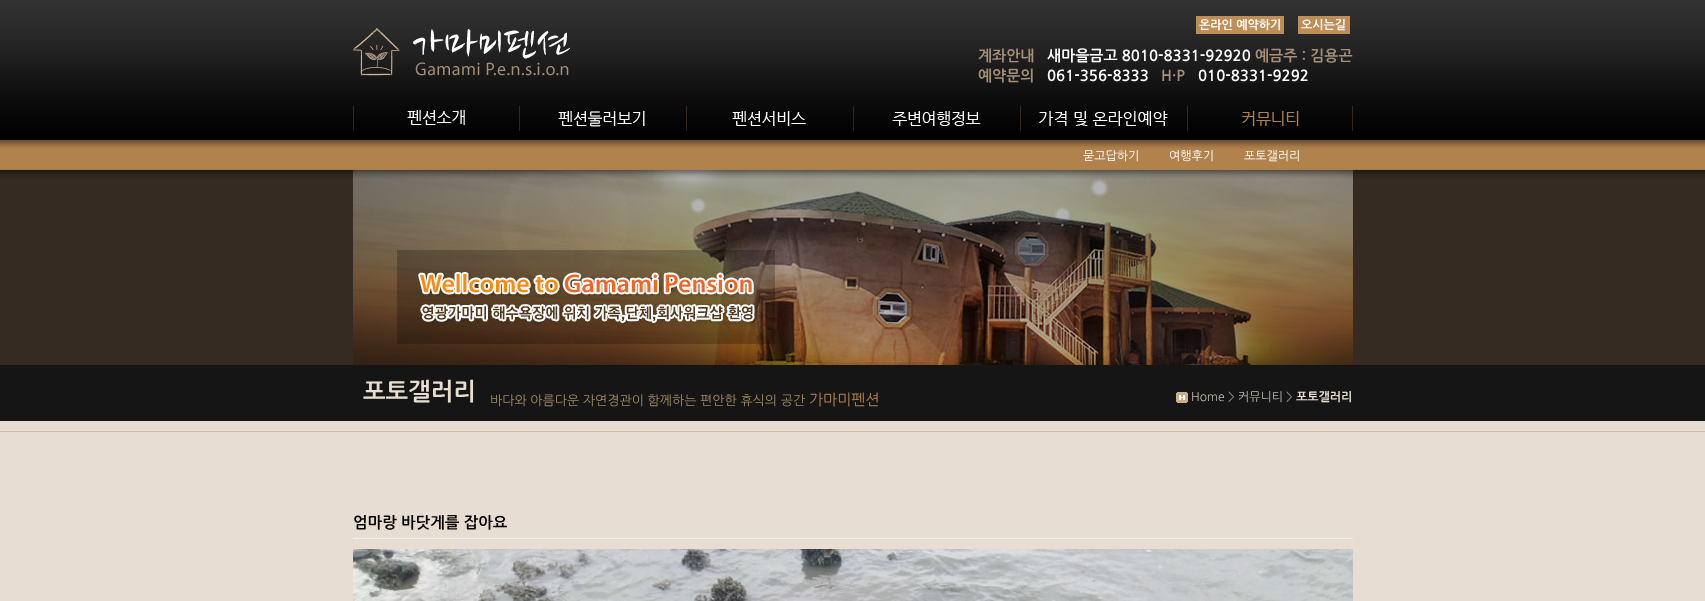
async function draw(canvas) {
  canvas.width = 1705
  canvas.height = 601
  const ctx = canvas.getContext('2d')
  ctx.miterLimit = 4
  ctx.fontKerning = 'normal'
  async function loadImage(src) {
    const img = new Image()
    img.src = src
    await img.decode()
    return img
  }

  ctx.fillStyle = '#e7ded1'
  ctx.fillRect(0, 0, 1705, 601)
  ctx.drawImage(await loadImage('image8.png'), 0, 169, 1705, 263)
  ctx.drawImage(await loadImage('image9.png'), 353, 169, 1000, 196)
  ctx.drawImage(await loadImage('image0.png'), 0, 0, 1705, 179)
  ctx.drawImage(await loadImage('image1.png'), 353, 28, 217, 48)
  ctx.fillStyle = '#bf8d56'
  ctx.fillRect(1196, 16, 88, 18)
  ctx.font = 'bold 12px NanumGothic'
  ctx.fillStyle = '#fff'
  ctx.fillText('온라인 예약하기', 1199, 29)
  ctx.fillStyle = '#bf8d56'
  ctx.fillRect(1298, 16, 52, 18)
  ctx.fillStyle = '#fff'
  ctx.fillText('오시는길', 1301, 29)
  ctx.font = 'bold 15px NanumGothic'
  ctx.fillStyle = '#a59078'
  ctx.fillText('계좌안내', 978, 61)
  ctx.fillStyle = '#fff'
  ctx.fillText('새마을금고 8010-8331-92920', 1047, 61)
  ctx.fillStyle = '#a59078'
  ctx.fillText('예금주 : 김용곤', 1255, 61)
  ctx.fillText('예약문의', 978, 81)
  ctx.fillStyle = '#fff'
  ctx.fillText('061-356-8333', 1047, 81)
  ctx.fillStyle = '#a59078'
  ctx.fillText('H·P', 1161, 81)
  ctx.fillStyle = '#fff'
  ctx.fillText('010-8331-9292', 1198, 81)
  ctx.drawImage(await loadImage('image2.png'), 353, 106, 112, 25)
  ctx.drawImage(await loadImage('image3.png'), 519, 106, 126, 25)
  ctx.drawImage(await loadImage('image4.png'), 686, 106, 120, 25)
  ctx.drawImage(await loadImage('image5.png'), 853, 106, 128, 25)
  ctx.drawImage(await loadImage('image6.png'), 1020, 106, 148, 25)
  ctx.drawImage(await loadImage('image7.png'), 1187, 106, 166, 25)
  ctx.font = '12px NanumGothic'
  ctx.fillText('묻고답하기', 1083, 160)
  ctx.fillText('여행후기', 1169, 160)
  ctx.fillText('포토갤러리', 1244, 160)
  ctx.font = 'bold 24px NanumGothic'
  ctx.fillStyle = '#e7ded1'
  ctx.fillText('포토갤러리', 363, 400)
  ctx.font = '13px NanumGothic'
  ctx.fillStyle = '#a48a60'
  ctx.fillText('바다와 아름다운 자연경관이 함께하는 편안한 휴식의 공간', 490, 405)
  ctx.font = '15px NanumGothic'
  ctx.fillStyle = '#b4844e'
  ctx.fillText('가마미펜션', 809, 405)
  ctx.drawImage(await loadImage('image10.png'), 1176, 392, 12, 11)
  ctx.font = '12px NanumGothic'
  ctx.fillStyle = '#c1baaf'
  ctx.fillText('Home', 1191, 401)
  ctx.fillStyle = '#999'
  ctx.fillText('>', 1228, 401)
  ctx.fillStyle = '#c1baaf'
  ctx.fillText('커뮤니티', 1238, 401)
  ctx.fillStyle = '#999'
  ctx.fillText('>', 1286, 401)
  ctx.font = 'bold 12px NanumGothic'
  ctx.fillStyle = '#e7ded1'
  ctx.fillText('포토갤러리', 1296, 401)
  ctx.fillStyle = '#efefef'
  ctx.fillRect(353, 538, 1000, 1)
  ctx.font = 'bold 15.5px NanumGothic'
  ctx.fillStyle = '#000'
  ctx.fillText('엄마랑 바닷게를 잡아요', 353, 528)
  ctx.drawImage(await loadImage('image11.png'), 353, 549, 1000, 52)
}

draw(document.querySelector('canvas'))
